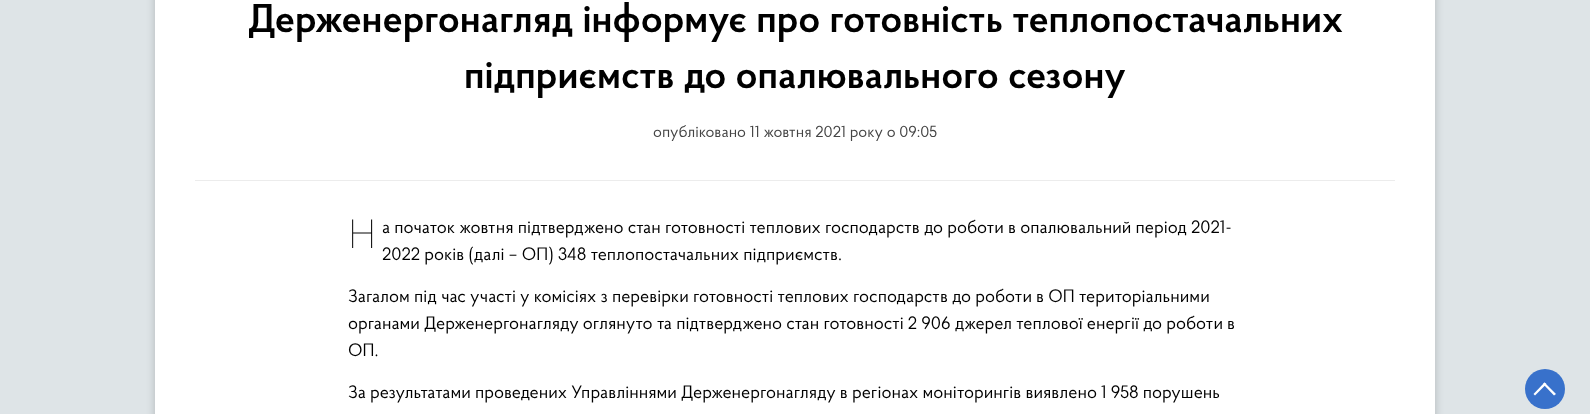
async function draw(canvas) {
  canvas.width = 1590
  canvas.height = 414
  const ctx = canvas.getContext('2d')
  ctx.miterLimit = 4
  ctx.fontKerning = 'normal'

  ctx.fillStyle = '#dee4e7'
  ctx.fillRect(0, 0, 1590, 414)
  ctx.fillStyle = '#00000033'
  ctx.filter = 'blur(4px)'
  ctx.beginPath()
  ctx.rect(155, -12, 1280, 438)
  ctx.fill()
  ctx.filter = 'none'
  ctx.fillStyle = '#fff'
  ctx.fillRect(155, 0, 1280, 414)
  ctx.font = '600 40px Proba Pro'
  ctx.fillStyle = '#000'
  ctx.fillText('Держенергонагляд інформує про готовність теплопостачальних', 248, 32)
  ctx.fillText('підприємств до опалювального сезону', 464, 88)
  ctx.font = '16px Proba Pro'
  ctx.fillStyle = '#444'
  ctx.fillText('опубліковано 11 жовтня 2021 року о 09:05', 653, 137)
  ctx.fillStyle = '#ececec'
  ctx.fillRect(195, 180, 1200, 1)
  ctx.font = '100 40px Noto Sans'
  ctx.fillStyle = '#000'
  ctx.fillText('Н', 348, 248)
  ctx.font = '18px Proba Pro'
  ctx.fillText('а початок жовтня підтверджено стан готовності теплових господарств до роботи в опалювальний період 2021-', 382, 233)
  ctx.fillText('2022 років (далі – ОП) 348 теплопостачальних підприємств.', 382, 260)
  ctx.fillText('Загалом під час участі у комісіях з перевірки готовності теплових господарств до роботи в ОП територіальними', 348, 302)
  ctx.fillText('органами Держенергонагляду оглянуто та підтверджено стан готовності 2 906 джерел теплової енергії до роботи в', 348, 329)
  ctx.fillText('ОП.', 348, 356)
  ctx.fillText('За результатами проведених Управліннями Держенергонагляду в регіонах моніторингів виявлено 1 958 порушень', 348, 398)
  ctx.fillStyle = '#3871cb'
  ctx.beginPath()
  ctx.arc(1545, 389, 20, 0, 2 * Math.PI)
  ctx.fill()
  ctx.fillStyle = '#fff'
  ctx.beginPath()
  ctx.moveTo(1543, 384)
  ctx.lineTo(1544.5, 382.5)
  ctx.lineTo(1556, 394)
  ctx.lineTo(1554, 395.5)
  ctx.closePath()
  ctx.fill()
  ctx.beginPath()
  ctx.moveTo(1544.5, 382.5)
  ctx.lineTo(1546.5, 384)
  ctx.lineTo(1535, 395.5)
  ctx.lineTo(1533.5, 394)
  ctx.closePath()
  ctx.fill()
}

draw(document.querySelector('canvas'))
